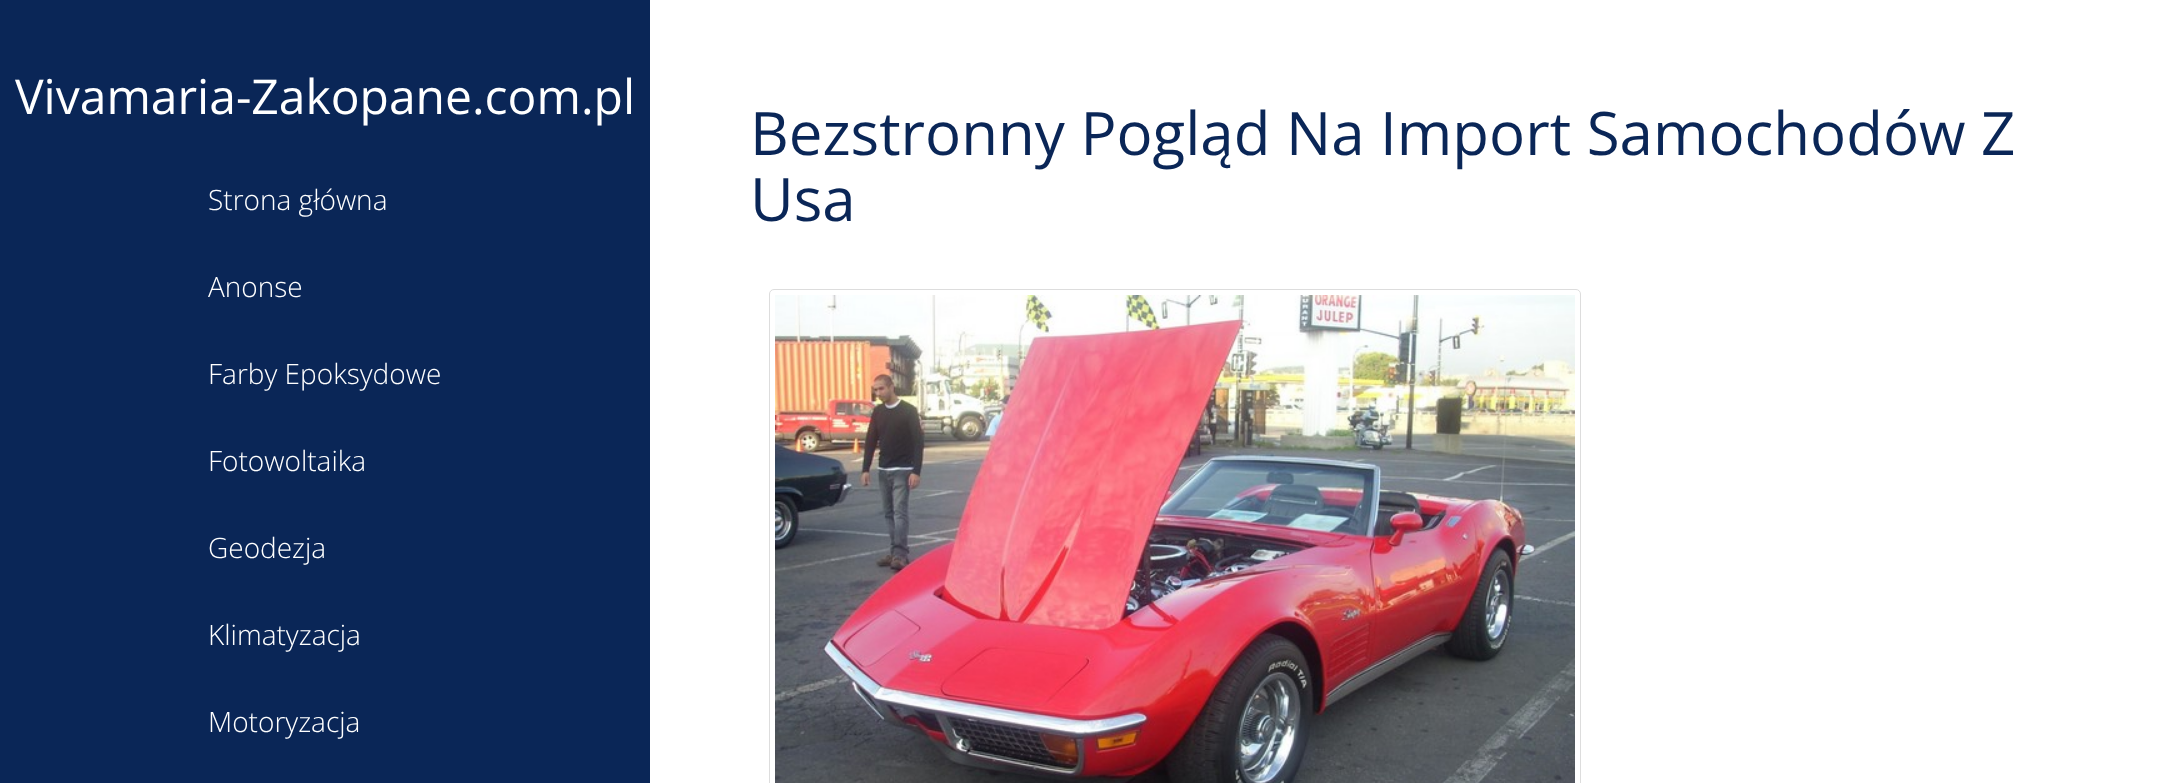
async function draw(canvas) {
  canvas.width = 2164
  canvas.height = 783
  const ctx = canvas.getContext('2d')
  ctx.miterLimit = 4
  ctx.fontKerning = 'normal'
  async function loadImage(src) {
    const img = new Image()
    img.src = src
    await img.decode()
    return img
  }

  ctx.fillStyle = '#fff'
  ctx.fillRect(0, 0, 2164, 783)
  ctx.fillStyle = '#0a2657'
  ctx.fillRect(0, 0, 650, 783)
  ctx.font = '48px Open Sans'
  ctx.fillStyle = '#fff'
  ctx.fillText('Vivamaria-Zakopane.com.pl', 15, 114)
  ctx.font = '300 28px Open Sans'
  ctx.fillText('Strona główna', 208, 210)
  ctx.fillText('Anonse', 208, 297)
  ctx.fillText('Farby Epoksydowe', 208, 384)
  ctx.fillText('Fotowoltaika', 208, 471)
  ctx.fillText('Geodezja', 208, 558)
  ctx.fillText('Klimatyzacja', 208, 645)
  ctx.fillText('Motoryzacja', 208, 732)
  ctx.font = '60px Open Sans'
  ctx.fillStyle = '#0a2657'
  ctx.fillText('Bezstronny Pogląd Na Import Samochodów Z', 750, 155)
  ctx.fillText('Usa', 750, 221)
  ctx.beginPath()
  ctx.roundRect(769.5, 289.5, 811, 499, 4.5)
  ctx.strokeStyle = '#ddd'
  ctx.stroke()
  ctx.drawImage(await loadImage('image0.png'), 775, 295, 800, 488)
}

draw(document.querySelector('canvas'))
